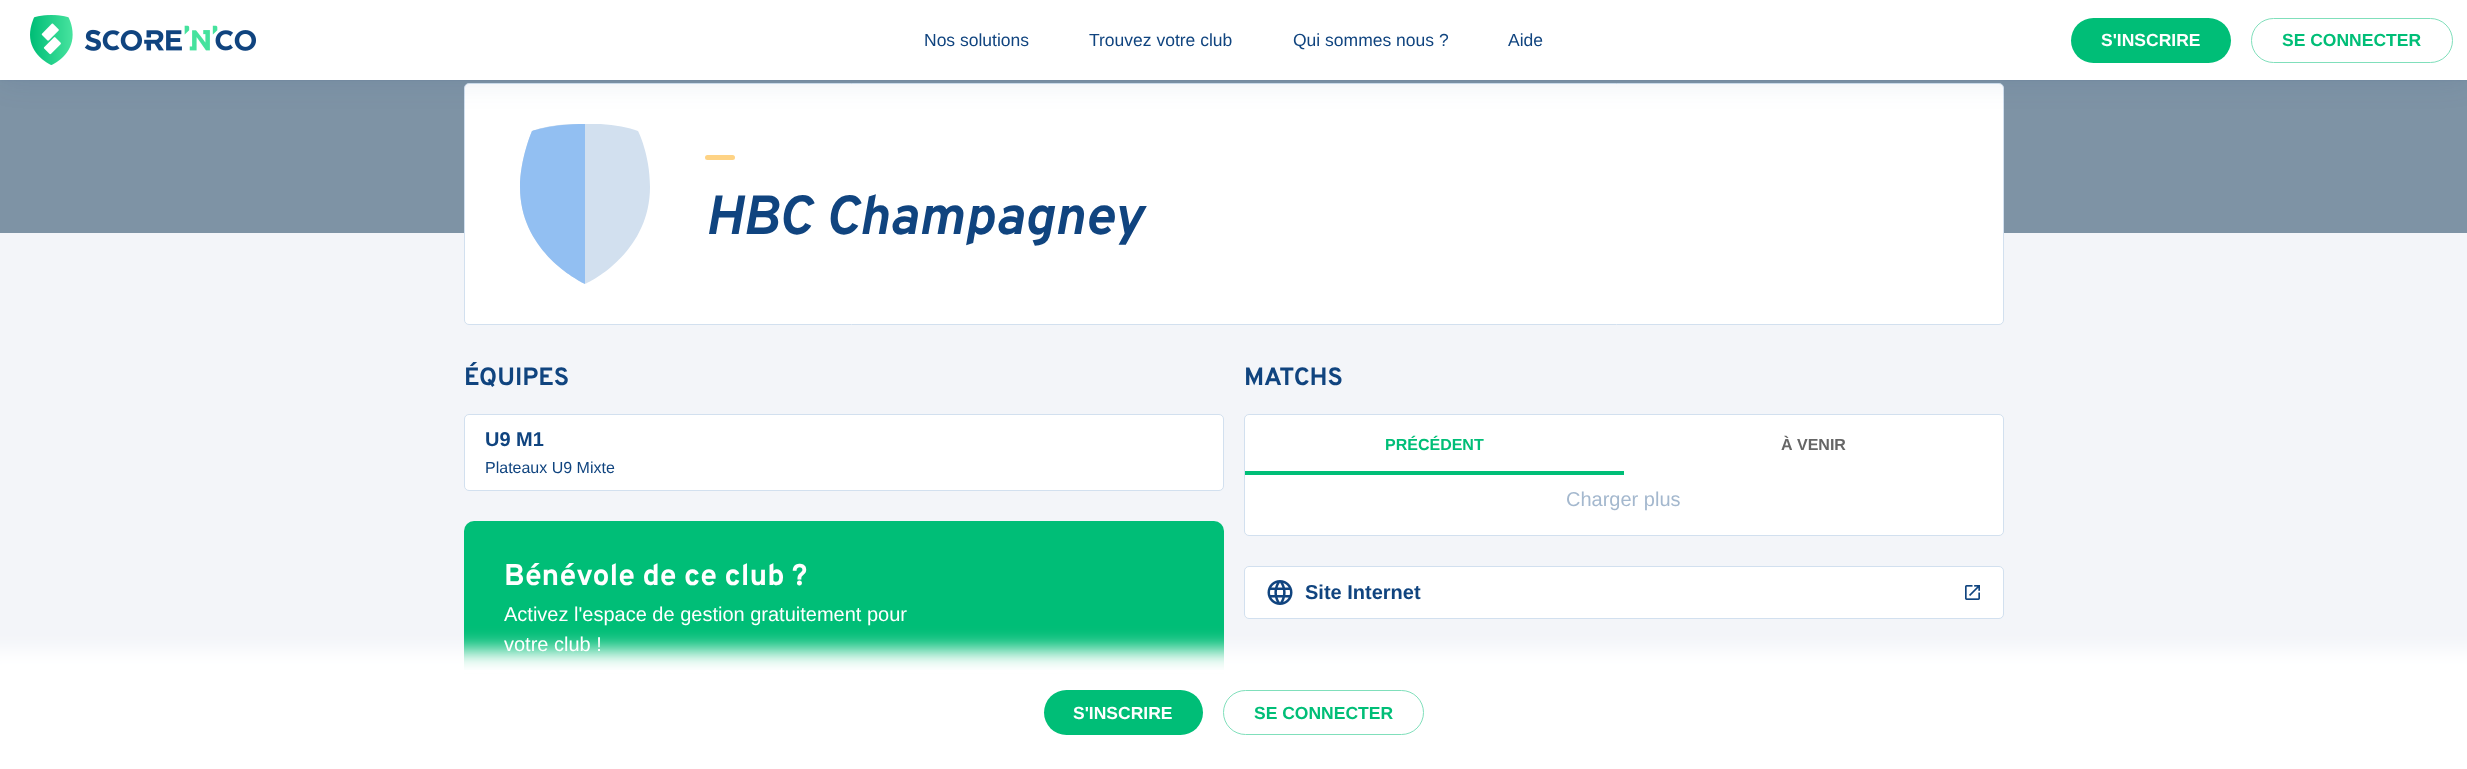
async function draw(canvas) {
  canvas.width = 2467
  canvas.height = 769
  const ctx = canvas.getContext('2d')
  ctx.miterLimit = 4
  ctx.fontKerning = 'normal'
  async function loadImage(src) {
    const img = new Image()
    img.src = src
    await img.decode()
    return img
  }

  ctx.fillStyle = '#f3f5f9'
  ctx.fillRect(0, 0, 2467, 769)
  ctx.fillStyle = '#7e93a5'
  ctx.fillRect(0, 80, 2467, 153)
  ctx.fillStyle = '#fff'
  ctx.beginPath()
  ctx.roundRect(464.5, 83.5, 1539, 241, 4.5)
  ctx.fill()
  ctx.strokeStyle = '#d2e0ef'
  ctx.stroke()
  ctx.fillStyle = '#10447f1a'
  ctx.filter = 'blur(1px)'
  ctx.beginPath()
  ctx.rect(0, 0, 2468, 80)
  ctx.fill()
  ctx.filter = 'none'
  ctx.save()
  ctx.beginPath()
  ctx.rect(505, 124, 160, 160)
  ctx.clip()
  ctx.fillStyle = '#d2e0ef'
  ctx.beginPath()
  ctx.moveTo(532, 131)
  ctx.bezierCurveTo(532, 131, 520, 159, 520, 187)
  ctx.bezierCurveTo(520, 249, 574, 278, 583, 283)
  ctx.bezierCurveTo(584, 284, 586, 284, 587, 283)
  ctx.bezierCurveTo(596, 279, 650, 249, 650, 187)
  ctx.bezierCurveTo(650, 154, 638, 131, 638, 131)
  ctx.bezierCurveTo(613, 121, 557, 121, 532, 131)
  ctx.fill('evenodd')
  ctx.restore()
  ctx.fillStyle = '#92bff2'
  ctx.beginPath()
  ctx.moveTo(520, 187)
  ctx.bezierCurveTo(520, 249, 574, 278, 583, 283)
  ctx.lineTo(585, 284)
  ctx.lineTo(585, 124)
  ctx.bezierCurveTo(551, 124, 532, 131, 532, 131)
  ctx.bezierCurveTo(532, 131, 520, 159, 520, 187)
  ctx.closePath()
  ctx.fill('evenodd')
  ctx.fillStyle = '#10447f1a'
  ctx.filter = 'blur(15px)'
  ctx.beginPath()
  ctx.rect(0, 0, 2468, 80)
  ctx.fill()
  ctx.filter = 'none'
  ctx.fillStyle = '#fff'
  ctx.fillRect(0, 0, 2467, 80)
  ctx.drawImage(await loadImage('image0.png'), 30, 15, 226, 50)
  ctx.font = '17.5px Liberation Sans'
  ctx.fillStyle = '#10447f'
  ctx.fillText('Nos solutions', 924, 46)
  ctx.fillText('Trouvez votre club', 1089, 46)
  ctx.fillText('Qui sommes nous ?', 1293, 46)
  ctx.fillText('Aide', 1508, 46)
  ctx.fillStyle = '#00be77'
  ctx.beginPath()
  ctx.roundRect(2071, 18, 160, 45, 22.5)
  ctx.fill()
  ctx.font = 'bold 17.5px Liberation Sans'
  ctx.fillStyle = '#fff'
  ctx.fillText('S\'INSCRIRE', 2101, 46)
  ctx.beginPath()
  ctx.roundRect(2251.5, 18.5, 201, 44, 22)
  ctx.strokeStyle = '#80dfbb'
  ctx.stroke()
  ctx.fillStyle = '#00be77'
  ctx.fillText('SE CONNECTER', 2282, 46)
  ctx.fillStyle = '#fed385'
  ctx.beginPath()
  ctx.roundRect(705, 155, 30, 5, 2.5)
  ctx.fill()
  ctx.font = 'italic bold 55px Overpass'
  ctx.fillStyle = '#10447f'
  ctx.fillText('HBC Champagney', 705, 234)
  ctx.font = 'bold 25px Overpass'
  ctx.fillText('ÉQUIPES', 464, 385)
  ctx.fillStyle = '#fff'
  ctx.beginPath()
  ctx.roundRect(464.5, 414.5, 759, 76, 4.5)
  ctx.fill()
  ctx.strokeStyle = '#d2e0ef'
  ctx.stroke()
  ctx.font = 'bold 20px Liberation Sans'
  ctx.fillStyle = '#10447f'
  ctx.fillText('U9 M1', 485, 446)
  ctx.font = '16px Liberation Sans'
  ctx.fillText('Plateaux U9 Mixte', 485, 473)
  ctx.fillStyle = '#00be77'
  ctx.beginPath()
  ctx.roundRect(464, 521, 760, 179, 10)
  ctx.fill()
  ctx.font = 'bold 30px Overpass'
  ctx.fillStyle = '#fff'
  ctx.fillText('Bénévole de ce club ?', 504, 585)
  ctx.font = '20px Liberation Sans'
  ctx.fillText('Activez l\'espace de gestion gratuitement pour', 504, 621)
  ctx.fillText('votre club !', 504, 651)
  ctx.font = 'bold 25px Overpass'
  ctx.fillStyle = '#10447f'
  ctx.fillText('MATCHS', 1244, 385)
  ctx.fillStyle = '#fff'
  ctx.beginPath()
  ctx.roundRect(1244.5, 414.5, 759, 121, 4.5)
  ctx.fill()
  ctx.stroke()
  ctx.font = 'bold 16px Liberation Sans'
  ctx.fillStyle = '#00be77'
  ctx.fillText('PRÉCÉDENT', 1385, 450)
  ctx.fillStyle = '#666'
  ctx.fillText('À VENIR', 1781, 450)
  ctx.fillStyle = '#00be77'
  ctx.fillRect(1245, 471, 379, 4)
  ctx.font = '20px Liberation Sans'
  ctx.fillStyle = '#a4b8ce'
  ctx.fillText('Charger plus', 1566, 506)
  ctx.fillStyle = '#fff'
  ctx.beginPath()
  ctx.roundRect(1244.5, 566.5, 759, 52, 4.5)
  ctx.fill()
  ctx.stroke()
  ctx.drawImage(await loadImage('image1.png'), 1267, 580, 26, 25)
  ctx.font = 'bold 20px Liberation Sans'
  ctx.fillStyle = '#10447f'
  ctx.fillText('Site Internet', 1305, 599)
  ctx.drawImage(await loadImage('image2.png'), 1965, 585, 15, 15)
  ctx.fillStyle = '#fff'
  ctx.filter = 'blur(10px)'
  ctx.beginPath()
  ctx.rect(-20, 650, 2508, 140)
  ctx.fill()
  ctx.filter = 'none'
  ctx.fillRect(464, 670, 760, 3)
  ctx.fillStyle = '#00be77'
  ctx.beginPath()
  ctx.roundRect(1044, 690, 159, 45, 22.5)
  ctx.fill()
  ctx.font = 'bold 17.5px Liberation Sans'
  ctx.fillStyle = '#fff'
  ctx.fillText('S\'INSCRIRE', 1073, 719)
  ctx.beginPath()
  ctx.roundRect(1223.5, 690.5, 200, 44, 22)
  ctx.strokeStyle = '#80dfbb'
  ctx.stroke()
  ctx.fillStyle = '#00be77'
  ctx.fillText('SE CONNECTER', 1254, 719)
}

draw(document.querySelector('canvas'))
